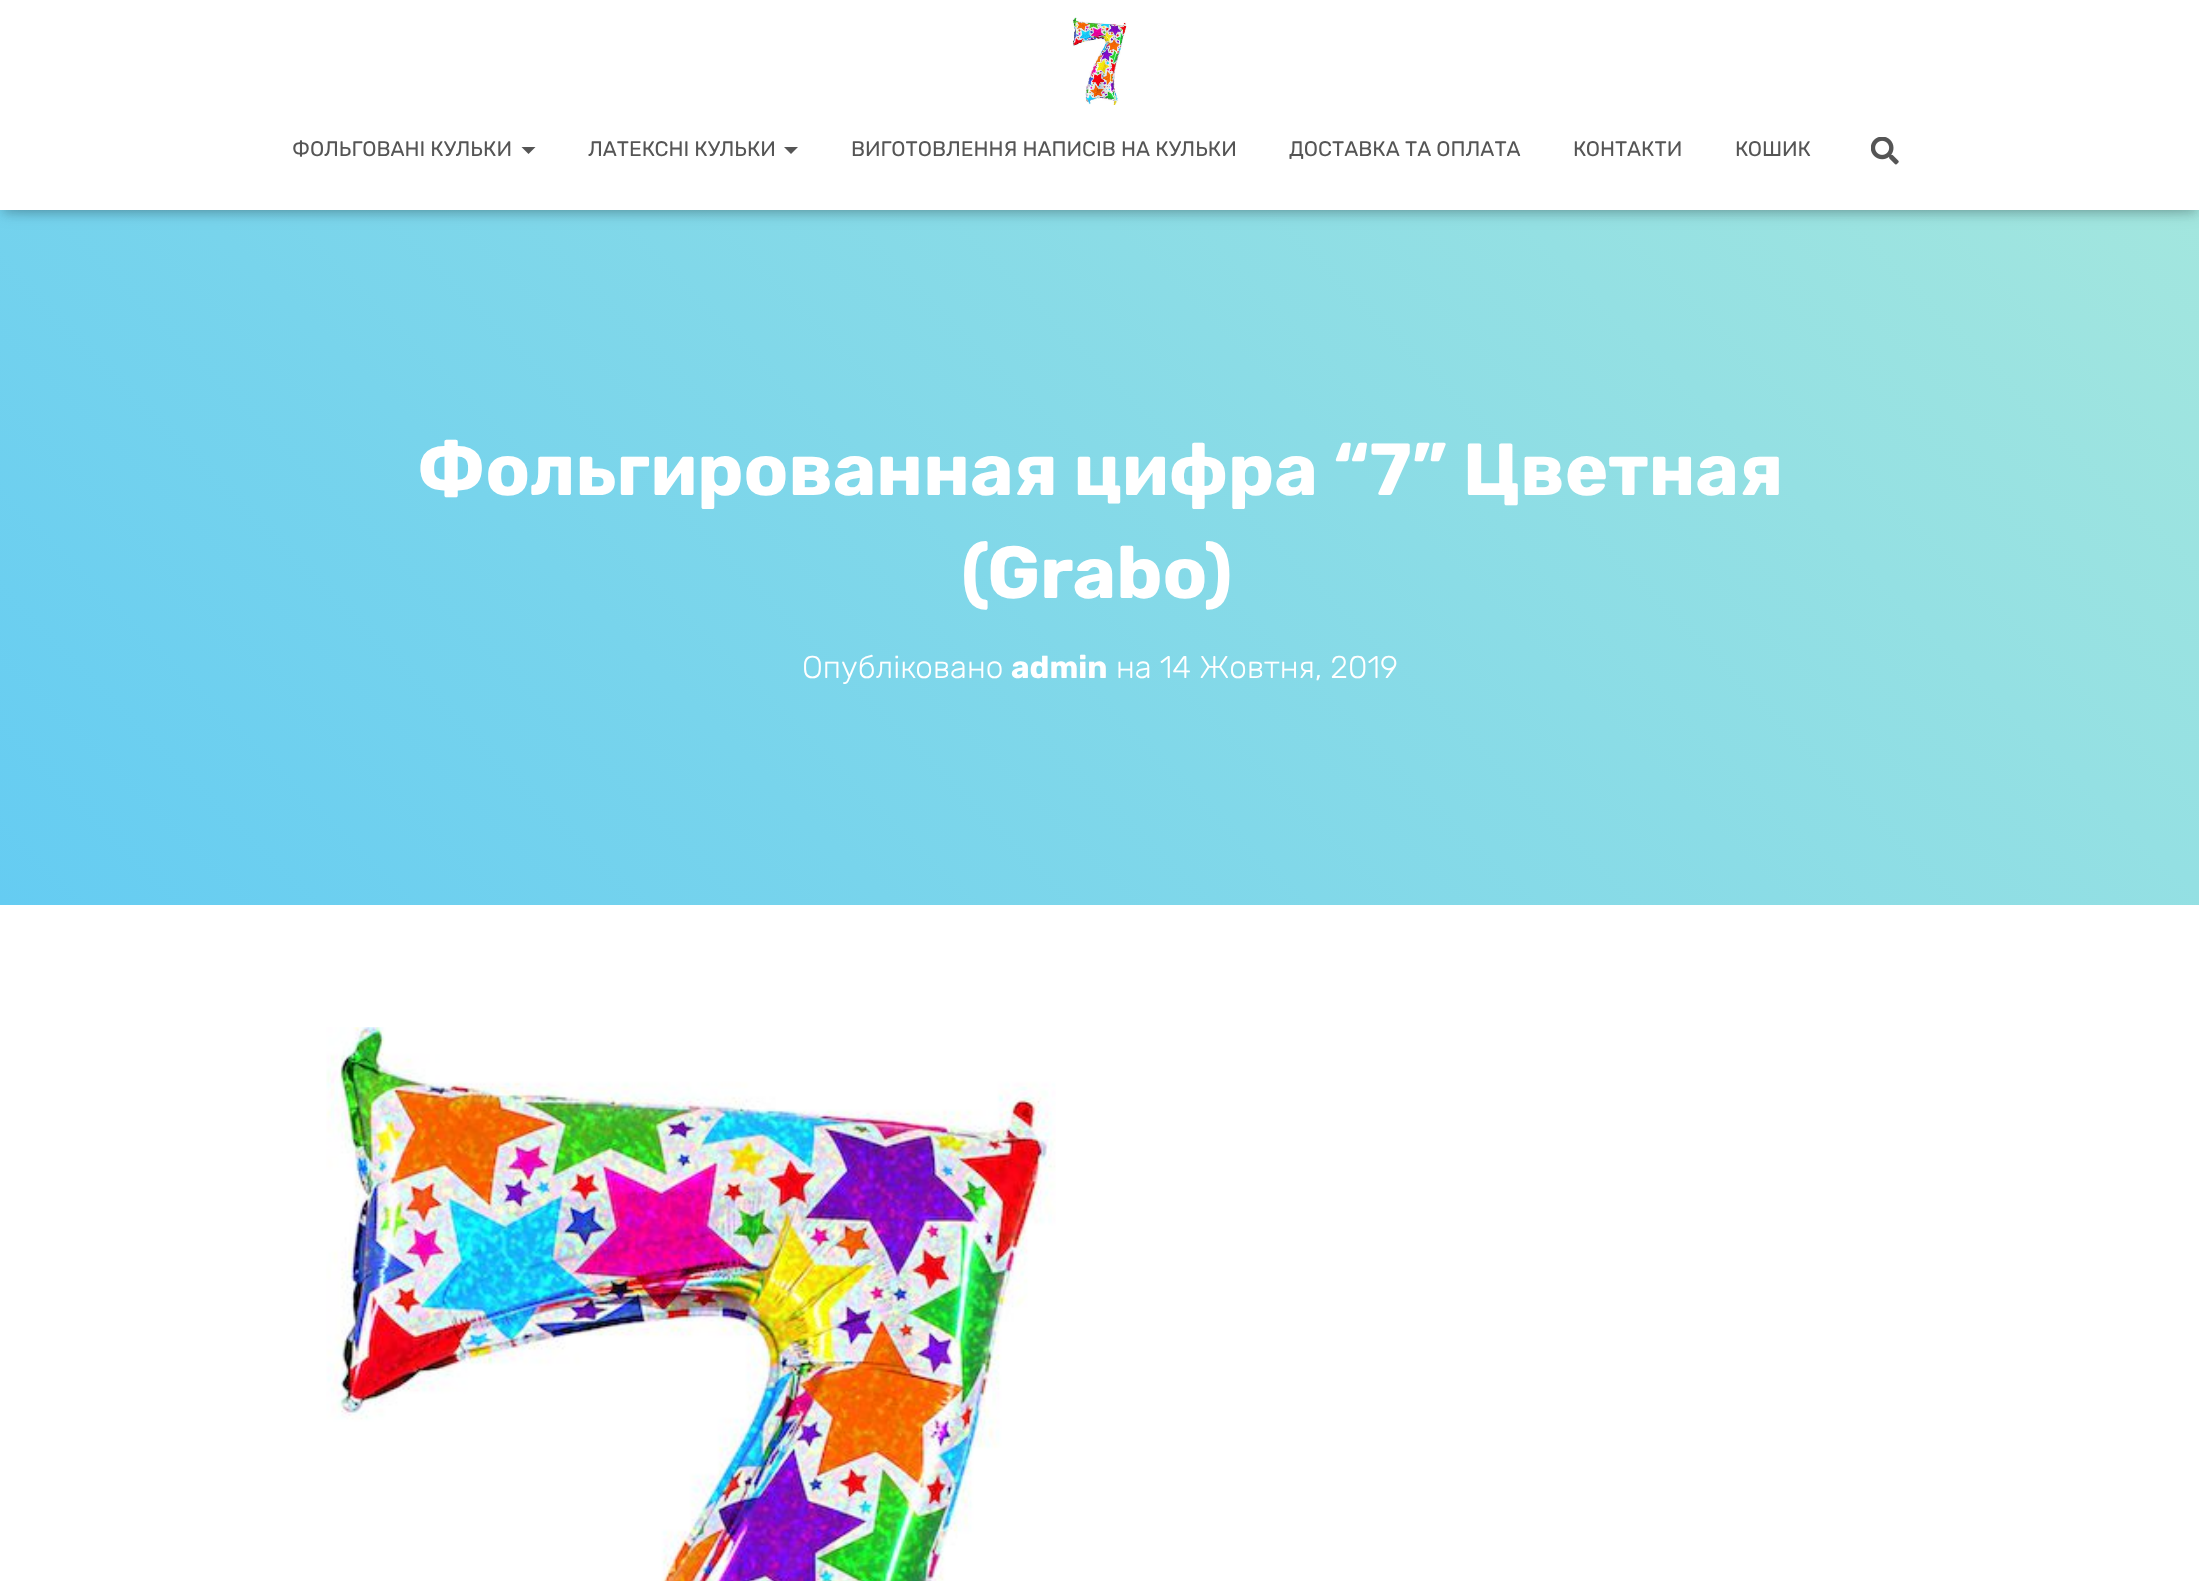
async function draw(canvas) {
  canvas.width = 2199
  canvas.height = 1581
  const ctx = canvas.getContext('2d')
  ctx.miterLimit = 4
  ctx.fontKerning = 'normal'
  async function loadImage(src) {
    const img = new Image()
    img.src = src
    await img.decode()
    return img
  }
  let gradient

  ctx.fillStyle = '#fff'
  ctx.fillRect(0, 0, 2199, 1581)
  gradient = ctx.createLinearGradient(324, 1229, 1876, -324)
  gradient.addColorStop(0, '#65ccf2')
  gradient.addColorStop(1, '#a7e8dd')
  ctx.fillStyle = gradient
  ctx.fillRect(0, 210, 2199, 695)
  ctx.fillStyle = '#0000001a'
  ctx.filter = 'blur(4.5px)'
  ctx.beginPath()
  ctx.rect(4, 11, 2192, 203)
  ctx.fill()
  ctx.filter = 'none'
  ctx.fillStyle = '#0000001f'
  ctx.filter = 'blur(9px)'
  ctx.beginPath()
  ctx.rect(0, 2, 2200, 210)
  ctx.fill()
  ctx.filter = 'none'
  ctx.fillStyle = '#0000006b'
  ctx.filter = 'blur(9px)'
  ctx.beginPath()
  ctx.rect(11, 12, 2178, 189)
  ctx.fill()
  ctx.filter = 'none'
  ctx.fillStyle = '#fff'
  ctx.fillRect(0, 0, 2199, 210)
  ctx.drawImage(await loadImage('image0.png'), 1072, 17, 55, 88)
  ctx.font = '21px Rubik'
  ctx.fillStyle = '#555'
  ctx.fillText('ФОЛЬГОВАНІ КУЛЬКИ', 292, 156)
  ctx.beginPath()
  ctx.moveTo(521.5, 147)
  ctx.lineTo(535.5, 147)
  ctx.lineTo(528.5, 154)
  ctx.closePath()
  ctx.fill()
  ctx.fillText('ЛАТЕКСНІ КУЛЬКИ', 588, 156)
  ctx.beginPath()
  ctx.moveTo(784, 147)
  ctx.lineTo(798, 147)
  ctx.lineTo(791, 154)
  ctx.closePath()
  ctx.fill()
  ctx.fillText('ВИГОТОВЛЕННЯ НАПИСІВ НА КУЛЬКИ', 851, 156)
  ctx.fillText('ДОСТАВКА ТА ОПЛАТА', 1289, 156)
  ctx.fillText('КОНТАКТИ', 1573, 156)
  ctx.fillText('КОШИК', 1735, 156)
  ctx.drawImage(await loadImage('image1.png'), 1871, 137, 28, 28)
  ctx.font = 'bold 73.5px Rubik'
  ctx.fillStyle = '#fff'
  ctx.fillText('Фольгированная цифра “7” Цветная', 417, 495)
  ctx.fillText('(Grabo)', 961, 598)
  ctx.font = '300 31.5px Rubik'
  ctx.fillText('Опубліковано', 802, 678)
  ctx.font = 'bold 31.5px Rubik'
  ctx.fillText('admin', 1011, 678)
  ctx.font = '300 31.5px Rubik'
  ctx.fillText('на 14 Жовтня, 2019', 1116, 678)
  ctx.drawImage(await loadImage('image2.png'), 326, 1027, 730, 554)
}

draw(document.querySelector('canvas'))
